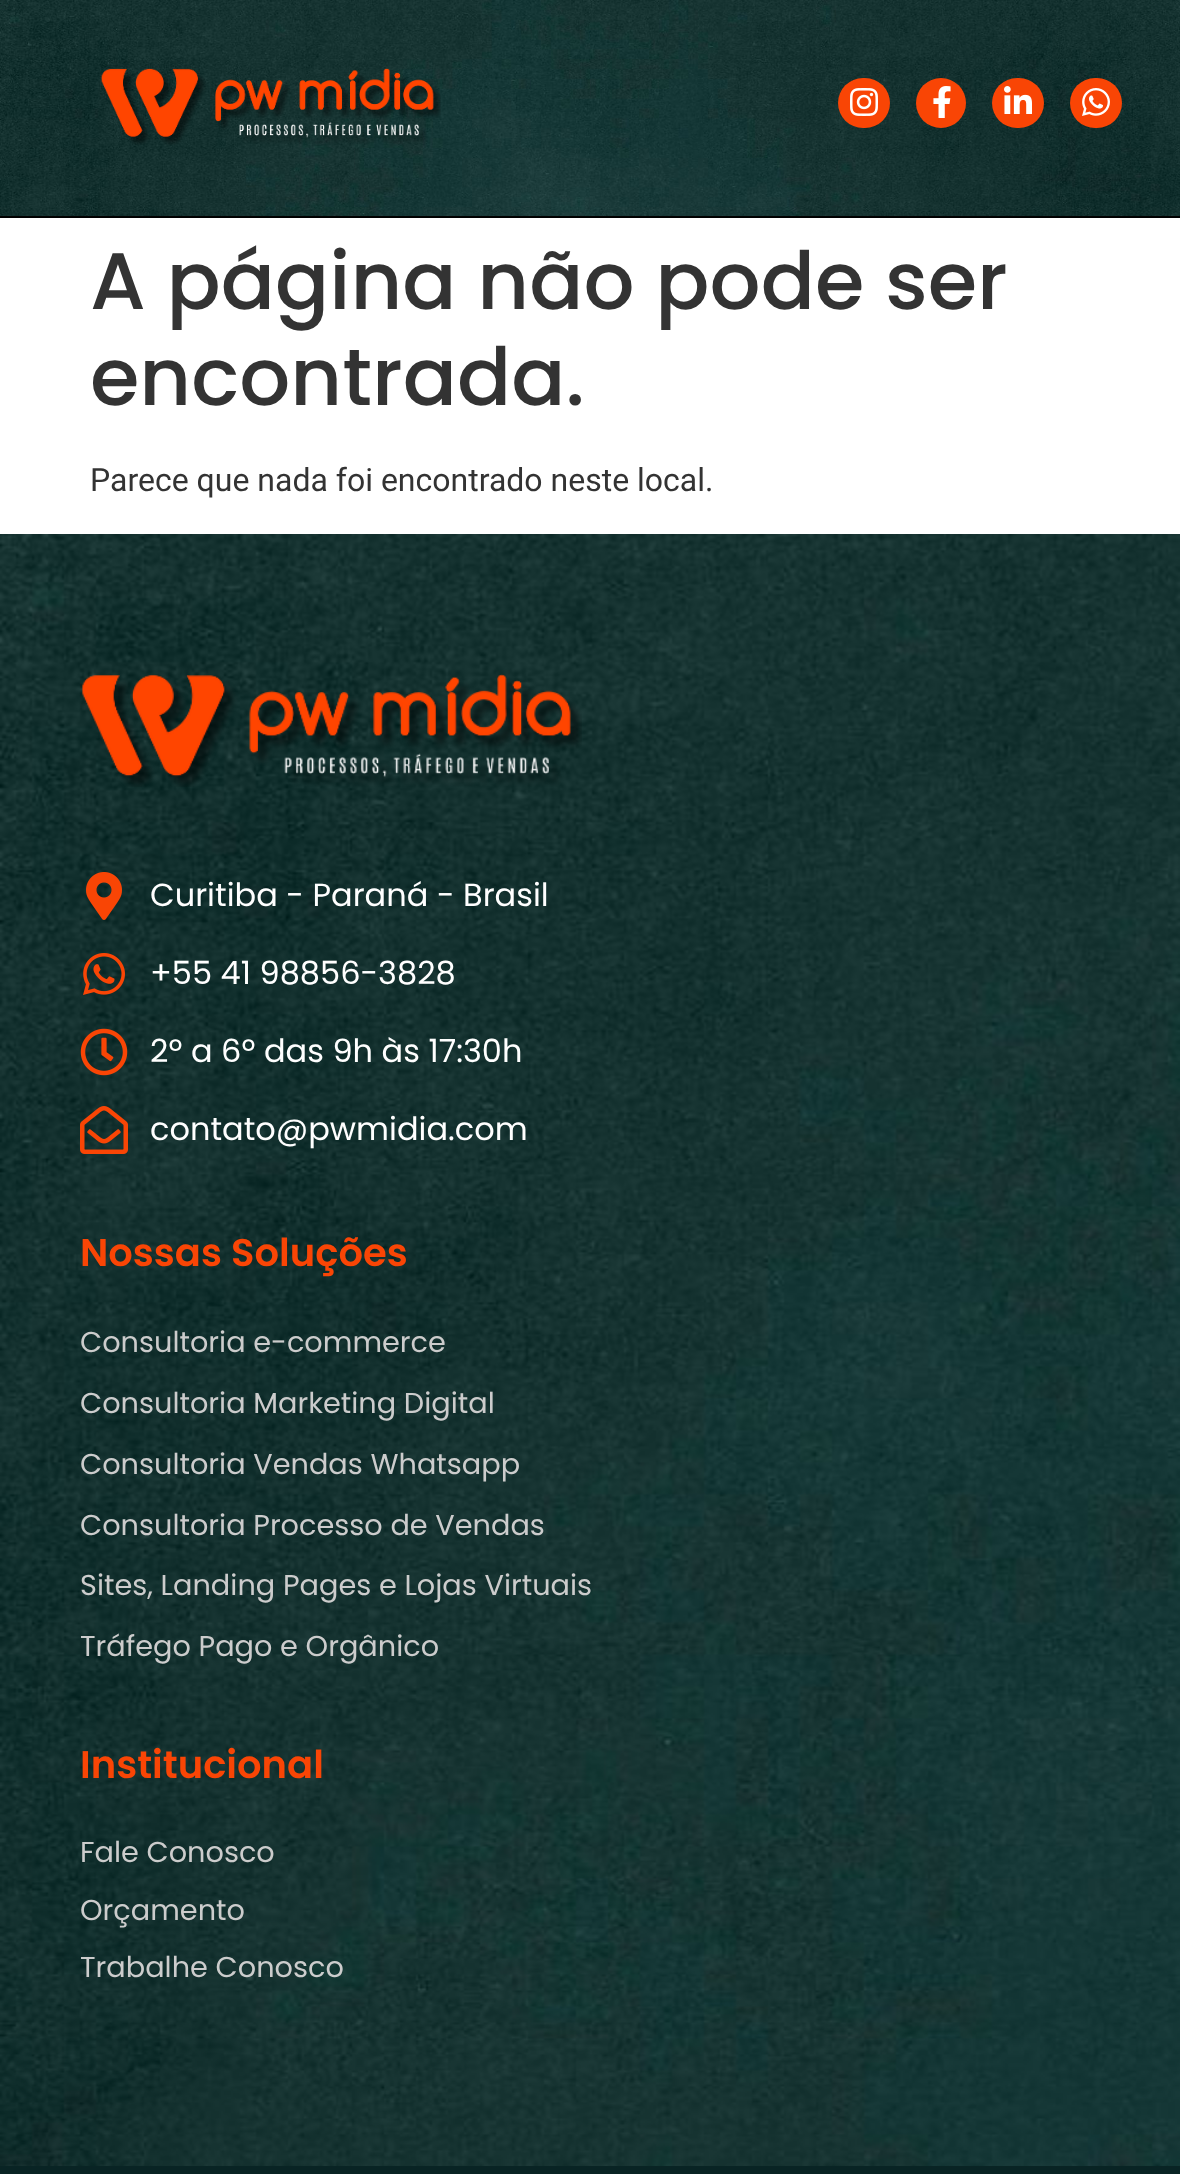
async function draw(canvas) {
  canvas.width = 1180
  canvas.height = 2174
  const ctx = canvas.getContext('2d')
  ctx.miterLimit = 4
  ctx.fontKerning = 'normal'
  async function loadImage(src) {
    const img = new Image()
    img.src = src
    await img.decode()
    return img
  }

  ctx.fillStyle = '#fff'
  ctx.fillRect(0, 0, 1180, 2174)
  ctx.drawImage(await loadImage('image0.png'), 0, 0, 1180, 216)
  ctx.fillStyle = '#000'
  ctx.fillRect(0, 216, 1180, 2)
  ctx.drawImage(await loadImage('image1.png'), 101, 68, 340, 77)
  ctx.fillStyle = '#f94505'
  ctx.beginPath()
  ctx.roundRect(838, 78, 52, 50, 25)
  ctx.fill()
  ctx.drawImage(await loadImage('image2.png'), 850, 88, 28, 28)
  ctx.beginPath()
  ctx.arc(941, 103, 25, 0, 2 * Math.PI)
  ctx.fill()
  ctx.drawImage(await loadImage('image3.png'), 933, 86, 18, 32)
  ctx.beginPath()
  ctx.roundRect(992, 78, 52, 50, 25)
  ctx.fill()
  ctx.drawImage(await loadImage('image4.png'), 1004, 86, 28, 28)
  ctx.beginPath()
  ctx.roundRect(1070, 78, 52, 50, 25)
  ctx.fill()
  ctx.drawImage(await loadImage('image5.png'), 1082, 88, 28, 28)
  ctx.font = '500 80px Poppins'
  ctx.fillStyle = '#333'
  ctx.fillText('A página não pode ser', 90, 309)
  ctx.fillText('encontrada.', 90, 405)
  ctx.font = '32px Roboto'
  ctx.fillText('Parece que nada foi encontrado neste local.', 90, 491)
  ctx.drawImage(await loadImage('image6.png'), 0, 534, 1180, 1632)
  ctx.drawImage(await loadImage('image7.png'), 81, 674, 501, 113)
  ctx.drawImage(await loadImage('image8.png'), 86, 872, 36, 48)
  ctx.font = '32px Poppins'
  ctx.fillStyle = '#fff'
  ctx.fillText('Curitiba - Paraná - Brasil', 150, 906)
  ctx.drawImage(await loadImage('image9.png'), 83, 953, 42, 42)
  ctx.fillText('+55 41 98856-3828', 150, 984)
  ctx.drawImage(await loadImage('image10.png'), 80, 1028, 48, 48)
  ctx.fillText('2º a 6º das 9h às 17:30h', 150, 1062)
  ctx.drawImage(await loadImage('image11.png'), 80, 1106, 48, 48)
  ctx.fillText('contato@pwmidia.com', 150, 1140)
  ctx.font = '600 38.5px Poppins'
  ctx.fillStyle = '#f94505'
  ctx.fillText('Nossas Soluções', 80, 1266)
  ctx.font = '28.75px Poppins'
  ctx.fillStyle = '#ccc'
  ctx.fillText('Consultoria e-commerce', 80, 1352)
  ctx.fillText('Consultoria Marketing Digital', 80, 1413)
  ctx.fillText('Consultoria Vendas Whatsapp', 80, 1474)
  ctx.fillText('Consultoria Processo de Vendas', 80, 1535)
  ctx.fillText('Sites, Landing Pages e Lojas Virtuais', 80, 1595)
  ctx.fillText('Tráfego Pago e Orgânico', 80, 1656)
  ctx.font = '600 38.5px Poppins'
  ctx.fillStyle = '#f94505'
  ctx.fillText('Institucional', 80, 1778)
  ctx.font = '28.75px Poppins'
  ctx.fillStyle = '#ccc'
  ctx.fillText('Fale Conosco', 80, 1862)
  ctx.fillText('Orçamento', 80, 1920)
  ctx.fillText('Trabalhe Conosco', 80, 1977)
  ctx.fillStyle = '#092424'
  ctx.fillRect(0, 2166, 1180, 8)
}

draw(document.querySelector('canvas'))
